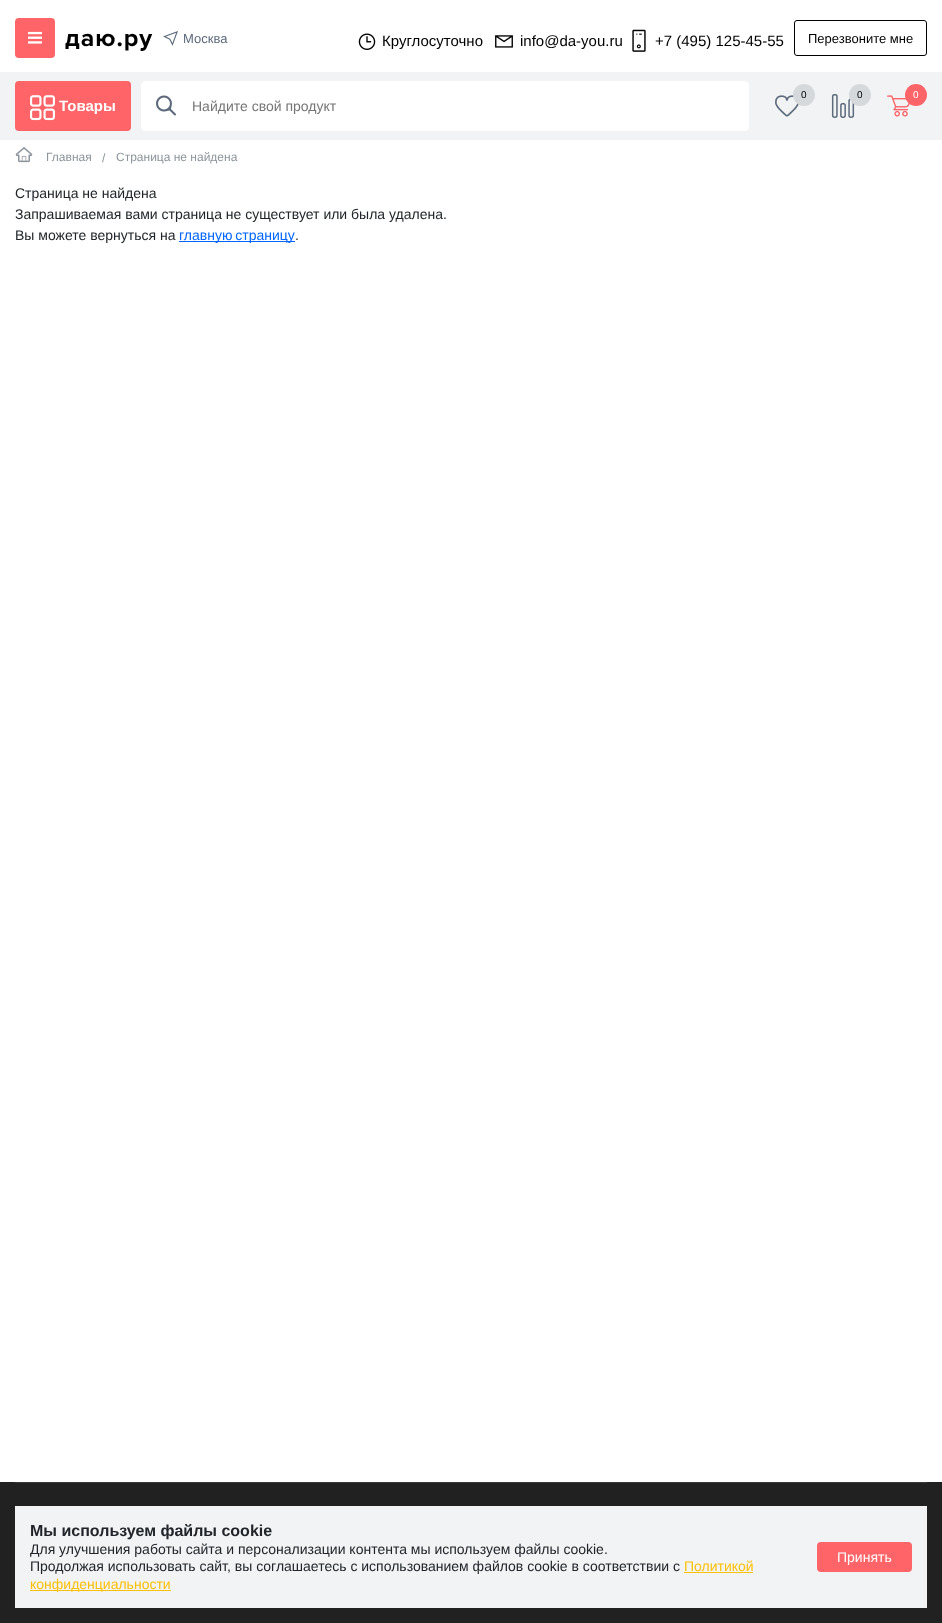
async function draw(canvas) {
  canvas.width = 942
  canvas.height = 1623
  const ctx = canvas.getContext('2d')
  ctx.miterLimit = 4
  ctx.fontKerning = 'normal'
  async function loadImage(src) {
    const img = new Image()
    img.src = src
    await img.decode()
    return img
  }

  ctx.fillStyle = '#fff'
  ctx.fillRect(0, 0, 942, 1623)
  ctx.fillStyle = '#ff6469'
  ctx.beginPath()
  ctx.roundRect(15, 18, 40, 40, 4)
  ctx.fill()
  ctx.drawImage(await loadImage('image0.png'), 28, 31, 14, 13)
  ctx.letterSpacing = '1px'
  ctx.font = 'bold 25px Proxima Nova'
  ctx.fillStyle = '#000'
  ctx.fillText('даю.ру', 65, 46)
  ctx.drawImage(await loadImage('image1.png'), 163, 31, 15, 15)
  ctx.letterSpacing = '0px'
  ctx.font = '13px Liberation Sans'
  ctx.fillStyle = '#5c6a7b'
  ctx.fillText('Москва', 183, 43)
  ctx.drawImage(await loadImage('image2.png'), 358, 33, 18, 17)
  ctx.font = '15px Liberation Sans'
  ctx.fillStyle = '#000'
  ctx.fillText('Круглосуточно', 382, 46)
  ctx.drawImage(await loadImage('image3.png'), 495, 35, 18, 13)
  ctx.fillText('info@da-you.ru', 520, 46)
  ctx.drawImage(await loadImage('image4.png'), 632, 29, 14, 23)
  ctx.fillText('+7 (495) 125-45-55', 655, 46)
  ctx.beginPath()
  ctx.roundRect(794.5, 20.5, 132, 35, 2.5)
  ctx.strokeStyle = '#000'
  ctx.stroke()
  ctx.font = '13px Liberation Sans'
  ctx.fillText('Перезвоните мне', 808, 43)
  ctx.fillStyle = '#f1f3f5'
  ctx.fillRect(0, 72, 942, 68)
  ctx.drawImage(await loadImage('image5.png'), 775, 95, 24, 22)
  ctx.fillStyle = '#d6d9dc'
  ctx.beginPath()
  ctx.arc(804, 95, 11, 0, 2 * Math.PI)
  ctx.fill()
  ctx.font = '10px Liberation Sans'
  ctx.fillStyle = '#000'
  ctx.fillText('0', 801, 98)
  ctx.drawImage(await loadImage('image6.png'), 831, 94, 24, 24)
  ctx.fillStyle = '#d6d9dc'
  ctx.beginPath()
  ctx.arc(860, 95, 11, 0, 2 * Math.PI)
  ctx.fill()
  ctx.fillStyle = '#000'
  ctx.fillText('0', 857, 98)
  ctx.drawImage(await loadImage('image7.png'), 887, 95, 23, 22)
  ctx.fillStyle = '#ff6469'
  ctx.beginPath()
  ctx.arc(916, 95, 11, 0, 2 * Math.PI)
  ctx.fill()
  ctx.fillStyle = '#fff'
  ctx.fillText('0', 913, 98)
  ctx.fillStyle = '#ff6469'
  ctx.beginPath()
  ctx.roundRect(15, 81, 116, 50, 4)
  ctx.fill()
  ctx.drawImage(await loadImage('image8.png'), 30, 95, 25, 26)
  ctx.font = 'bold 15px Liberation Sans'
  ctx.fillStyle = '#fff'
  ctx.fillText('Товары', 59, 111)
  ctx.beginPath()
  ctx.roundRect(141.5, 81.5, 607, 49, 3.5)
  ctx.fill()
  ctx.strokeStyle = '#fff'
  ctx.stroke()
  ctx.drawImage(await loadImage('image9.png'), 156, 95, 20, 21)
  ctx.font = '14px Liberation Sans'
  ctx.fillStyle = '#757575'
  ctx.fillText('Найдите свой продукт', 192, 111)
  ctx.drawImage(await loadImage('image10.png'), 15, 147, 18, 16)
  ctx.font = '12px Liberation Sans'
  ctx.fillStyle = '#8c949c'
  ctx.fillText('Главная', 46, 161)
  ctx.fillText('/', 102, 162)
  ctx.fillText('Страница не найдена', 116, 161)
  ctx.font = '14px Liberation Sans'
  ctx.fillStyle = '#212529'
  ctx.fillText('Страница не найдена', 15, 198)
  ctx.fillText('Запрашиваемая вами страница не существует или была удалена.', 15, 219)
  ctx.fillText('Вы можете вернуться на', 15, 240)
  ctx.fillStyle = '#06f'
  ctx.fillRect(179, 241, 116, 1)
  ctx.wordSpacing = '-1px'
  ctx.fillText('главную страницу', 179, 240)
  ctx.wordSpacing = '0px'
  ctx.fillStyle = '#212529'
  ctx.fillText('.', 295, 240)
  ctx.fillStyle = '#212121'
  ctx.fillRect(0, 1482, 942, 141)
  ctx.fillStyle = '#393939'
  ctx.fillRect(15, 1482, 912, 1)
  ctx.fillStyle = '#f1f3f5'
  ctx.fillRect(15, 1506, 912, 102)
  ctx.font = 'bold 16px Liberation Sans'
  ctx.fillStyle = '#212529'
  ctx.fillText('Мы используем файлы cookie', 30, 1536)
  ctx.font = '14px Liberation Sans'
  ctx.fillText('Для улучшения работы сайта и персонализации контента мы используем файлы cookie.', 30, 1554)
  ctx.fillText('Продолжая использовать сайт, вы соглашаетесь с использованием файлов cookie в соответствии с', 30, 1571)
  ctx.fillStyle = '#ffc107'
  ctx.fillText('Политикой', 684, 1571)
  ctx.fillRect(684, 1572, 69, 1)
  ctx.fillRect(30, 1590, 141, 1)
  ctx.fillText('конфиденциальности', 30, 1589)
  ctx.fillStyle = '#ff6469'
  ctx.beginPath()
  ctx.roundRect(817, 1542, 95, 30, 4)
  ctx.fill()
  ctx.fillStyle = '#fff'
  ctx.fillText('Принять', 837, 1562)
}

draw(document.querySelector('canvas'))
